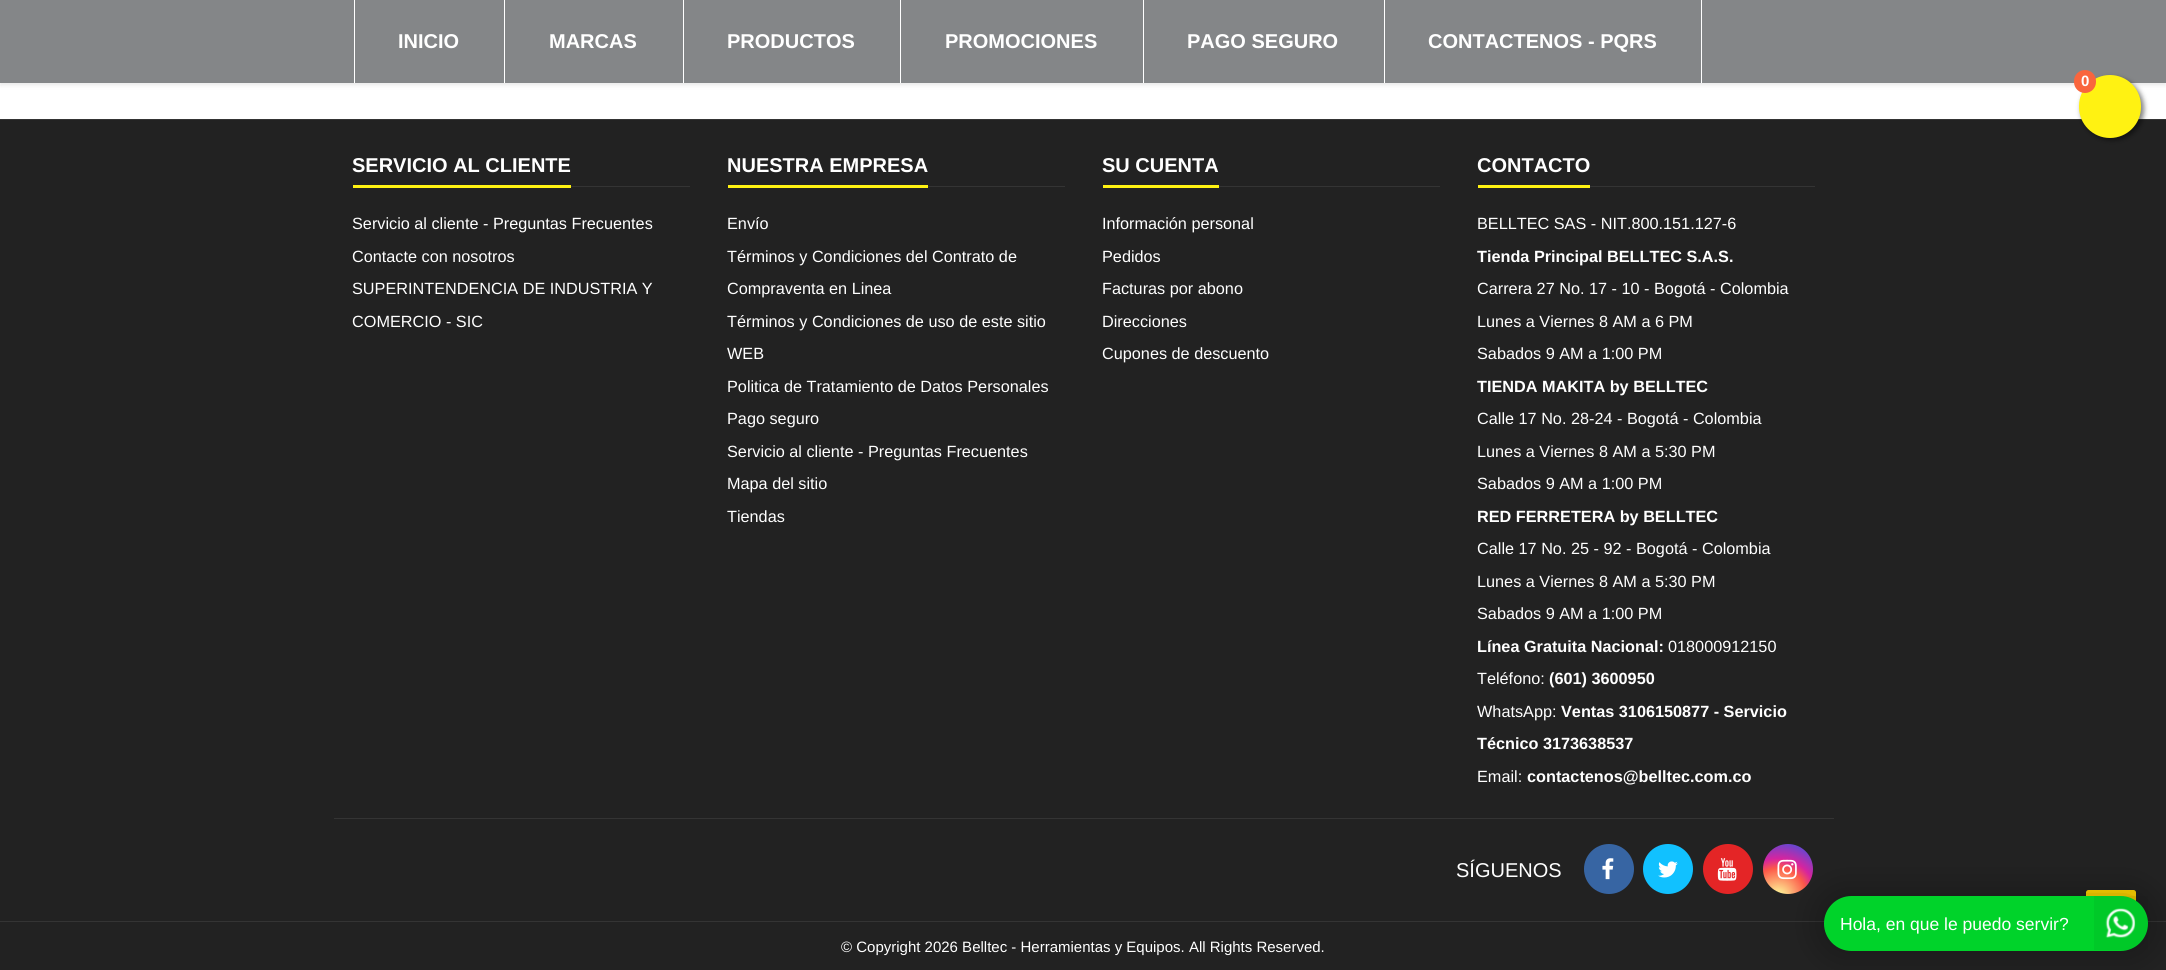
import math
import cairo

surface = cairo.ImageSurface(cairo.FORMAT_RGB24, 2166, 970)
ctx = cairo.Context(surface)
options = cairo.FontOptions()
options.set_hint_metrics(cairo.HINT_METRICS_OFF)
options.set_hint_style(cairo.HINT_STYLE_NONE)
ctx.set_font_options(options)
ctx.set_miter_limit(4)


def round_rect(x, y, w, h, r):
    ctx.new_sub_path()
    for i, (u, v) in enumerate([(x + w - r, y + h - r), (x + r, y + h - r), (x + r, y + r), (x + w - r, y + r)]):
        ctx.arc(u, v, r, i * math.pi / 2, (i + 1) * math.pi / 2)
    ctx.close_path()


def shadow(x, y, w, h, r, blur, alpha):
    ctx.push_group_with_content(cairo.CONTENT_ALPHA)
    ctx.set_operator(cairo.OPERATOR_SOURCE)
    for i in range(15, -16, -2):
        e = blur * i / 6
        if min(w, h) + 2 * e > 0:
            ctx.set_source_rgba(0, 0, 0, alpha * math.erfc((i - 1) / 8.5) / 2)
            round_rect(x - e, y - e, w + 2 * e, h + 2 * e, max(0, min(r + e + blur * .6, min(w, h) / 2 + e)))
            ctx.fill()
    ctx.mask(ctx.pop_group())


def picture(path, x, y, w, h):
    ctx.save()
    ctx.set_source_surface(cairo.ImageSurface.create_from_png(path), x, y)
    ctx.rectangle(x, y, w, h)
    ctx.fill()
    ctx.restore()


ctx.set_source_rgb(1, 1, 1)
ctx.paint()
ctx.set_source_rgb(0, 0, 0)
shadow(0, 3, 2166, 82, 0, 2.5, 0.1)
ctx.set_source_rgb(0.518, 0.525, 0.533)
ctx.rectangle(0, 0, 2166, 83)
ctx.fill()
ctx.set_source_rgb(1, 1, 1)
ctx.rectangle(354, 0, 1, 83)
ctx.fill()
ctx.select_font_face("Liberation Sans", cairo.FONT_SLANT_NORMAL, cairo.FONT_WEIGHT_BOLD)
ctx.set_font_size(20)
ctx.move_to(398, 48)
ctx.show_text("INICIO")
ctx.rectangle(504, 0, 1, 83)
ctx.fill()
ctx.move_to(549, 48)
ctx.show_text("MARCAS")
ctx.rectangle(683, 0, 1, 83)
ctx.fill()
ctx.move_to(727, 48)
ctx.show_text("PRODUCTOS")
ctx.rectangle(900, 0, 1, 83)
ctx.fill()
ctx.move_to(945, 48)
ctx.show_text("PROMOCIONES")
ctx.rectangle(1143, 0, 1, 83)
ctx.fill()
ctx.move_to(1187, 48)
ctx.show_text("PAGO SEGURO")
ctx.rectangle(1701, 0, 1, 83)
ctx.fill()
ctx.rectangle(1384, 0, 1, 83)
ctx.fill()
ctx.move_to(1428, 48)
ctx.show_text("CONTACTENOS - PQRS")
ctx.set_source_rgb(0.133, 0.133, 0.133)
ctx.rectangle(0, 120, 2166, 850)
ctx.fill()
ctx.set_source_rgb(0.204, 0.204, 0.204)
ctx.rectangle(0, 119, 2166, 1)
ctx.fill()
ctx.set_source_rgb(0, 0, 0)
shadow(2081, 78, 63, 62, 31, 2.5, 0.5)
ctx.set_source_rgb(1, 0.949, 0.071)
round_rect(2079, 75, 62, 63, 31)
ctx.fill()
ctx.set_source_rgb(0.973, 0.396, 0.239)
round_rect(2074, 70, 22, 23, 11)
ctx.fill()
ctx.set_font_size(15)
ctx.set_source_rgb(1, 1, 1)
ctx.move_to(2081, 86)
ctx.show_text("0")
ctx.set_source_rgb(0.204, 0.204, 0.204)
ctx.rectangle(571, 186, 119, 1)
ctx.fill()
ctx.set_source_rgb(1, 0.949, 0.071)
ctx.rectangle(353, 185, 218, 3)
ctx.fill()
ctx.set_font_size(20)
ctx.set_source_rgb(1, 1, 1)
ctx.move_to(352, 172)
ctx.show_text("SERVICIO AL CLIENTE")
ctx.select_font_face("Liberation Sans")
ctx.set_font_size(16.25)
ctx.move_to(352, 229)
ctx.show_text("Servicio al cliente - Preguntas Frecuentes")
ctx.move_to(352, 262)
ctx.show_text("Contacte con nosotros")
ctx.move_to(352, 294)
ctx.show_text("SUPERINTENDENCIA DE INDUSTRIA Y")
ctx.move_to(352, 327)
ctx.show_text("COMERCIO - SIC")
ctx.set_source_rgb(0.204, 0.204, 0.204)
ctx.rectangle(928, 186, 137, 1)
ctx.fill()
ctx.set_source_rgb(1, 0.949, 0.071)
ctx.rectangle(728, 185, 200, 3)
ctx.fill()
ctx.select_font_face("Liberation Sans", cairo.FONT_SLANT_NORMAL, cairo.FONT_WEIGHT_BOLD)
ctx.set_font_size(20)
ctx.set_source_rgb(1, 1, 1)
ctx.move_to(727, 172)
ctx.show_text("NUESTRA EMPRESA")
ctx.select_font_face("Liberation Sans")
ctx.set_font_size(16.25)
ctx.move_to(727, 229)
ctx.show_text("Envío")
ctx.move_to(727, 262)
ctx.show_text("Términos y Condiciones del Contrato de")
ctx.move_to(727, 294)
ctx.show_text("Compraventa en Linea")
ctx.move_to(727, 327)
ctx.show_text("Términos y Condiciones de uso de este sitio")
ctx.move_to(727, 359)
ctx.show_text("WEB")
ctx.move_to(727, 392)
ctx.show_text("Politica de Tratamiento de Datos Personales")
ctx.move_to(727, 424)
ctx.show_text("Pago seguro")
ctx.move_to(727, 457)
ctx.show_text("Servicio al cliente - Preguntas Frecuentes")
ctx.move_to(727, 489)
ctx.show_text("Mapa del sitio")
ctx.move_to(727, 522)
ctx.show_text("Tiendas")
ctx.set_source_rgb(0.204, 0.204, 0.204)
ctx.rectangle(1219, 186, 221, 1)
ctx.fill()
ctx.set_source_rgb(1, 0.949, 0.071)
ctx.rectangle(1103, 185, 116, 3)
ctx.fill()
ctx.select_font_face("Liberation Sans", cairo.FONT_SLANT_NORMAL, cairo.FONT_WEIGHT_BOLD)
ctx.set_font_size(20)
ctx.set_source_rgb(1, 1, 1)
ctx.move_to(1102, 172)
ctx.show_text("SU CUENTA")
ctx.select_font_face("Liberation Sans")
ctx.set_font_size(16.25)
ctx.move_to(1102, 229)
ctx.show_text("Información personal")
ctx.move_to(1102, 262)
ctx.show_text("Pedidos")
ctx.move_to(1102, 294)
ctx.show_text("Facturas por abono")
ctx.move_to(1102, 327)
ctx.show_text("Direcciones")
ctx.move_to(1102, 359)
ctx.show_text("Cupones de descuento")
ctx.set_source_rgb(0.204, 0.204, 0.204)
ctx.rectangle(1590, 186, 225, 1)
ctx.fill()
ctx.set_source_rgb(1, 0.949, 0.071)
ctx.rectangle(1478, 185, 112, 3)
ctx.fill()
ctx.select_font_face("Liberation Sans", cairo.FONT_SLANT_NORMAL, cairo.FONT_WEIGHT_BOLD)
ctx.set_font_size(20)
ctx.set_source_rgb(1, 1, 1)
ctx.move_to(1477, 172)
ctx.show_text("CONTACTO")
ctx.select_font_face("Liberation Sans")
ctx.set_font_size(16.25)
ctx.move_to(1477, 229)
ctx.show_text("BELLTEC SAS - NIT.800.151.127-6")
ctx.select_font_face("Liberation Sans", cairo.FONT_SLANT_NORMAL, cairo.FONT_WEIGHT_BOLD)
ctx.move_to(1477, 262)
ctx.show_text("Tienda Principal BELLTEC S.A.S.")
ctx.select_font_face("Liberation Sans")
ctx.move_to(1477, 294)
ctx.show_text("Carrera 27 No. 17 - 10 - Bogotá - Colombia")
ctx.move_to(1477, 327)
ctx.show_text("Lunes a Viernes 8 AM a 6 PM")
ctx.move_to(1477, 359)
ctx.show_text("Sabados 9 AM a 1:00 PM")
ctx.select_font_face("Liberation Sans", cairo.FONT_SLANT_NORMAL, cairo.FONT_WEIGHT_BOLD)
ctx.move_to(1477, 392)
ctx.show_text("TIENDA MAKITA by BELLTEC")
ctx.select_font_face("Liberation Sans")
ctx.move_to(1477, 424)
ctx.show_text("Calle 17 No. 28-24 - Bogotá - Colombia")
ctx.move_to(1477, 457)
ctx.show_text("Lunes a Viernes 8 AM a 5:30 PM")
ctx.move_to(1477, 489)
ctx.show_text("Sabados 9 AM a 1:00 PM")
ctx.select_font_face("Liberation Sans", cairo.FONT_SLANT_NORMAL, cairo.FONT_WEIGHT_BOLD)
ctx.move_to(1477, 522)
ctx.show_text("RED FERRETERA by BELLTEC")
ctx.select_font_face("Liberation Sans")
ctx.move_to(1477, 554)
ctx.show_text("Calle 17 No. 25 - 92 - Bogotá - Colombia")
ctx.move_to(1477, 587)
ctx.show_text("Lunes a Viernes 8 AM a 5:30 PM")
ctx.move_to(1477, 619)
ctx.show_text("Sabados 9 AM a 1:00 PM")
ctx.select_font_face("Liberation Sans", cairo.FONT_SLANT_NORMAL, cairo.FONT_WEIGHT_BOLD)
ctx.move_to(1477, 652)
ctx.show_text("Línea Gratuita Nacional:")
ctx.select_font_face("Liberation Sans")
ctx.move_to(1668, 652)
ctx.show_text("018000912150")
ctx.move_to(1477, 684)
ctx.show_text("Teléfono:")
ctx.select_font_face("Liberation Sans", cairo.FONT_SLANT_NORMAL, cairo.FONT_WEIGHT_BOLD)
ctx.move_to(1549, 684)
ctx.show_text("(601) 3600950")
ctx.select_font_face("Liberation Sans")
ctx.move_to(1477, 717)
ctx.show_text("WhatsApp:")
ctx.select_font_face("Liberation Sans", cairo.FONT_SLANT_NORMAL, cairo.FONT_WEIGHT_BOLD)
ctx.move_to(1561, 717)
ctx.show_text("Ventas 3106150877 - Servicio")
ctx.move_to(1477, 749)
ctx.show_text("Técnico 3173638537")
ctx.select_font_face("Liberation Sans")
ctx.move_to(1477, 782)
ctx.show_text("Email:")
ctx.select_font_face("Liberation Sans", cairo.FONT_SLANT_NORMAL, cairo.FONT_WEIGHT_BOLD)
ctx.move_to(1527, 782)
ctx.show_text("contactenos@belltec.com.co")
ctx.set_source_rgb(0.204, 0.204, 0.204)
ctx.rectangle(0, 921, 2166, 1)
ctx.fill()
ctx.set_source_rgb(1, 0.827, 0)
round_rect(2086, 890, 50, 50, 2.5)
ctx.fill()
ctx.set_source_rgb(0.204, 0.204, 0.204)
ctx.rectangle(334, 818, 1500, 1)
ctx.fill()
ctx.select_font_face("Liberation Sans")
ctx.set_font_size(20)
ctx.set_source_rgb(1, 1, 1)
ctx.move_to(1456, 877)
ctx.show_text("SÍGUENOS")
ctx.set_source_rgb(0.216, 0.396, 0.639)
ctx.new_path()
ctx.arc(1609, 869, 25, 0, 2 * math.pi)
ctx.fill()
picture("img1.png", 1602, 858, 12, 22)
ctx.set_source_rgb(0.067, 0.757, 1)
ctx.arc(1668, 869, 25, 0, 2 * math.pi)
ctx.fill()
picture("img2.png", 1658, 861, 20, 17)
ctx.set_source_rgb(0.894, 0.145, 0.149)
ctx.arc(1728, 869, 25, 0, 2 * math.pi)
ctx.fill()
picture("img3.png", 1717, 858, 20, 23)
gradient = cairo.RadialGradient(1778, 897, 0, 1778, 897, 64)
gradient.add_color_stop_rgba(0, 0.992, 0.957, 0.592, 1)
gradient.add_color_stop_rgba(0.05, 0.992, 0.957, 0.592, 1)
gradient.add_color_stop_rgba(0.45, 0.992, 0.349, 0.286, 1)
gradient.add_color_stop_rgba(0.6, 0.839, 0.141, 0.624, 1)
gradient.add_color_stop_rgba(1, 0.157, 0.353, 0.922, 1)
ctx.set_source(gradient)
ctx.arc(1788, 869, 25, 0, 2 * math.pi)
ctx.fill()
picture("img4.png", 1777, 859, 20, 21)
ctx.set_font_size(15)
ctx.set_source_rgb(1, 1, 1)
ctx.move_to(841, 952)
ctx.show_text("© Copyright 2026 Belltec - Herramientas y Equipos. All Rights Reserved.")
ctx.set_source_rgb(0, 0, 0)
shadow(1824, 896, 324, 55, 27.5, 19, 0.3)
ctx.set_source_rgb(0, 0.827, 0.165)
round_rect(1824, 896, 324, 55, 27.5)
ctx.fill()
ctx.set_font_size(17.5)
ctx.set_source_rgb(1, 1, 1)
ctx.move_to(1840, 930)
ctx.show_text("Hola, en que le puedo servir?")
ctx.set_source_rgba(0, 0, 0, 0.05)
ctx.rectangle(2094, 896, 54, 54)
ctx.fill()
picture("img5.png", 2105, 908, 31, 30)
surface.write_to_png("page.png")
